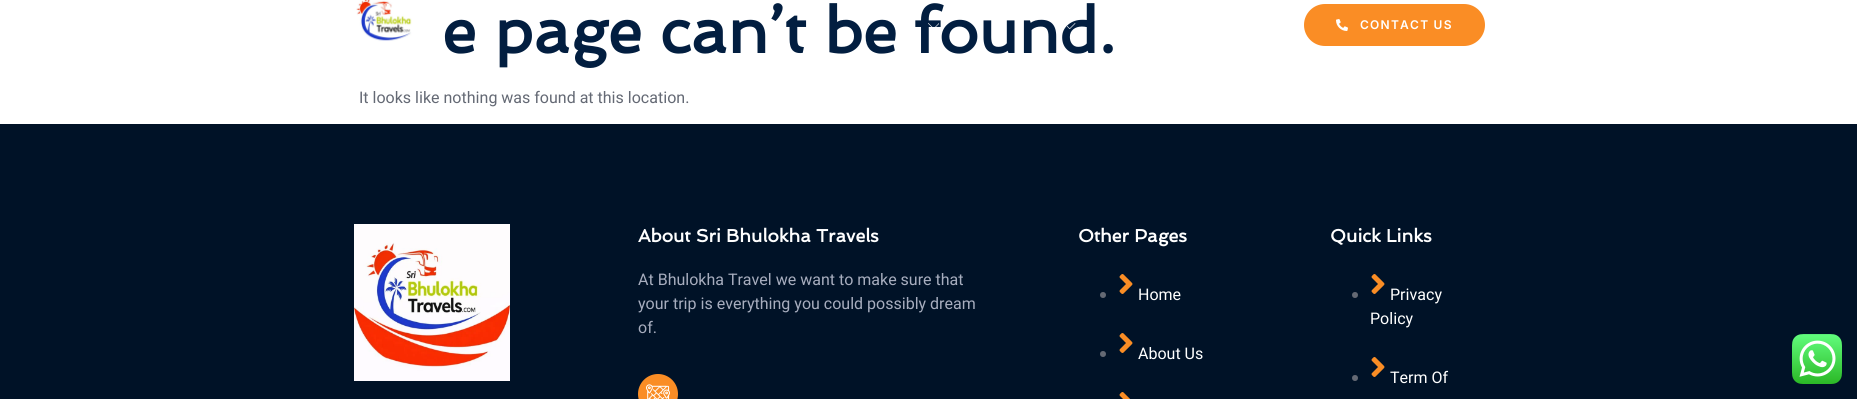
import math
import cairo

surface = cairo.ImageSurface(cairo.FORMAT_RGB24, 1857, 399)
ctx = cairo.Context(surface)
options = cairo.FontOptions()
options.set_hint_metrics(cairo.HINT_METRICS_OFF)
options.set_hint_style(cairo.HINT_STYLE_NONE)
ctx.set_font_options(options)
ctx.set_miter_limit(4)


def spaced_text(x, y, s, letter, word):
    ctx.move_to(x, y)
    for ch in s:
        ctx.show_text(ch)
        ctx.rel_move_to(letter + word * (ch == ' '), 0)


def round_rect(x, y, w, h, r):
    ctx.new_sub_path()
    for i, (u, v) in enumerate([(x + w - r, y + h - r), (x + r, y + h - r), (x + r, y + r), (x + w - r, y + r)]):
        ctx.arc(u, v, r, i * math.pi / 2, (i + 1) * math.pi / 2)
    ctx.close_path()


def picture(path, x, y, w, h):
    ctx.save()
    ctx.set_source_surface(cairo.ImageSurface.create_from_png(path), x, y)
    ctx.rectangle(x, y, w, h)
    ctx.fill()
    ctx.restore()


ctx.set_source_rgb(1, 1, 1)
ctx.paint()
ctx.select_font_face("Spinnaker", cairo.FONT_SLANT_NORMAL, cairo.FONT_WEIGHT_BOLD)
ctx.set_font_size(63)
ctx.set_source_rgb(0.008, 0.118, 0.251)
ctx.move_to(442, 53)
ctx.show_text("e page can’t be found.")
ctx.select_font_face("Heebo")
ctx.set_font_size(16)
ctx.set_source_rgb(0.392, 0.412, 0.455)
ctx.move_to(359, 103)
ctx.show_text("It looks like nothing was found at this location.")
picture("img1.png", 356, 0, 61, 53)
picture("img2.png", 928, 23, 11, 4)
picture("img3.png", 1067, 23, 9, 6)
ctx.set_source_rgb(0.98, 0.553, 0.145)
round_rect(1304, 4, 181, 42, 21)
ctx.fill()
picture("img4.png", 1336, 19, 12, 12)
ctx.select_font_face("Inter SemiBold")
ctx.set_font_size(12)
ctx.set_source_rgb(1, 1, 1)
spaced_text(1360, 29, "CONTACT US", 1.25, 0)
ctx.set_source_rgb(0, 0.071, 0.153)
ctx.rectangle(0, 124, 1857, 275)
ctx.fill()
picture("img5.png", 354, 224, 156, 157)
ctx.select_font_face("Spinnaker", cairo.FONT_SLANT_NORMAL, cairo.FONT_WEIGHT_BOLD)
ctx.set_font_size(18)
ctx.set_source_rgb(1, 1, 1)
ctx.move_to(638, 242)
ctx.show_text("About Sri Bhulokha Travels")
ctx.select_font_face("Heebo")
ctx.set_font_size(16)
ctx.set_source_rgb(0.655, 0.678, 0.745)
ctx.move_to(638, 285)
ctx.show_text("At Bhulokha Travel we want to make sure that")
ctx.move_to(638, 309)
ctx.show_text("your trip is everything you could possibly dream")
ctx.move_to(638, 333)
ctx.show_text("of.")
ctx.set_source_rgb(0.98, 0.553, 0.145)
ctx.new_path()
ctx.arc(658, 394, 20, 0, 2 * math.pi)
ctx.fill()
picture("img6.png", 646, 384, 24, 15)
ctx.select_font_face("Spinnaker", cairo.FONT_SLANT_NORMAL, cairo.FONT_WEIGHT_BOLD)
ctx.set_font_size(18)
ctx.set_source_rgb(1, 1, 1)
ctx.move_to(1078, 242)
ctx.show_text("Other Pages")
ctx.set_source_rgb(0.392, 0.412, 0.455)
ctx.new_path()
ctx.arc(1103, 295, 3, 0, 2 * math.pi)
ctx.fill()
picture("img7.png", 1119, 274, 14, 20)
ctx.select_font_face("Heebo")
ctx.set_font_size(16)
ctx.set_source_rgb(1, 1, 1)
ctx.move_to(1138, 300)
ctx.show_text("Home")
ctx.set_source_rgb(0.392, 0.412, 0.455)
ctx.new_path()
ctx.arc(1103, 354, 3, 0, 2 * math.pi)
ctx.fill()
picture("img7.png", 1119, 333, 14, 20)
ctx.set_source_rgb(1, 1, 1)
ctx.move_to(1138, 359)
ctx.show_text("About Us")
picture("img8.png", 1119, 392, 11, 7)
ctx.select_font_face("Spinnaker", cairo.FONT_SLANT_NORMAL, cairo.FONT_WEIGHT_BOLD)
ctx.set_font_size(18)
ctx.move_to(1330, 242)
ctx.show_text("Quick Links")
picture("img7.png", 1371, 274, 14, 20)
ctx.set_source_rgb(0.392, 0.412, 0.455)
ctx.arc(1355, 295, 3, 0, 2 * math.pi)
ctx.fill()
ctx.select_font_face("Heebo")
ctx.set_font_size(16)
ctx.set_source_rgb(1, 1, 1)
ctx.move_to(1390, 300)
ctx.show_text("Privacy")
ctx.move_to(1370, 324)
ctx.show_text("Policy")
ctx.set_source_rgb(0.392, 0.412, 0.455)
ctx.new_path()
ctx.arc(1355, 378, 3, 0, 2 * math.pi)
ctx.fill()
picture("img7.png", 1371, 357, 14, 20)
ctx.set_source_rgb(1, 1, 1)
ctx.move_to(1390, 383)
ctx.show_text("Term Of")
picture("img9.png", 1792, 334, 50, 50)
surface.write_to_png("page.png")
